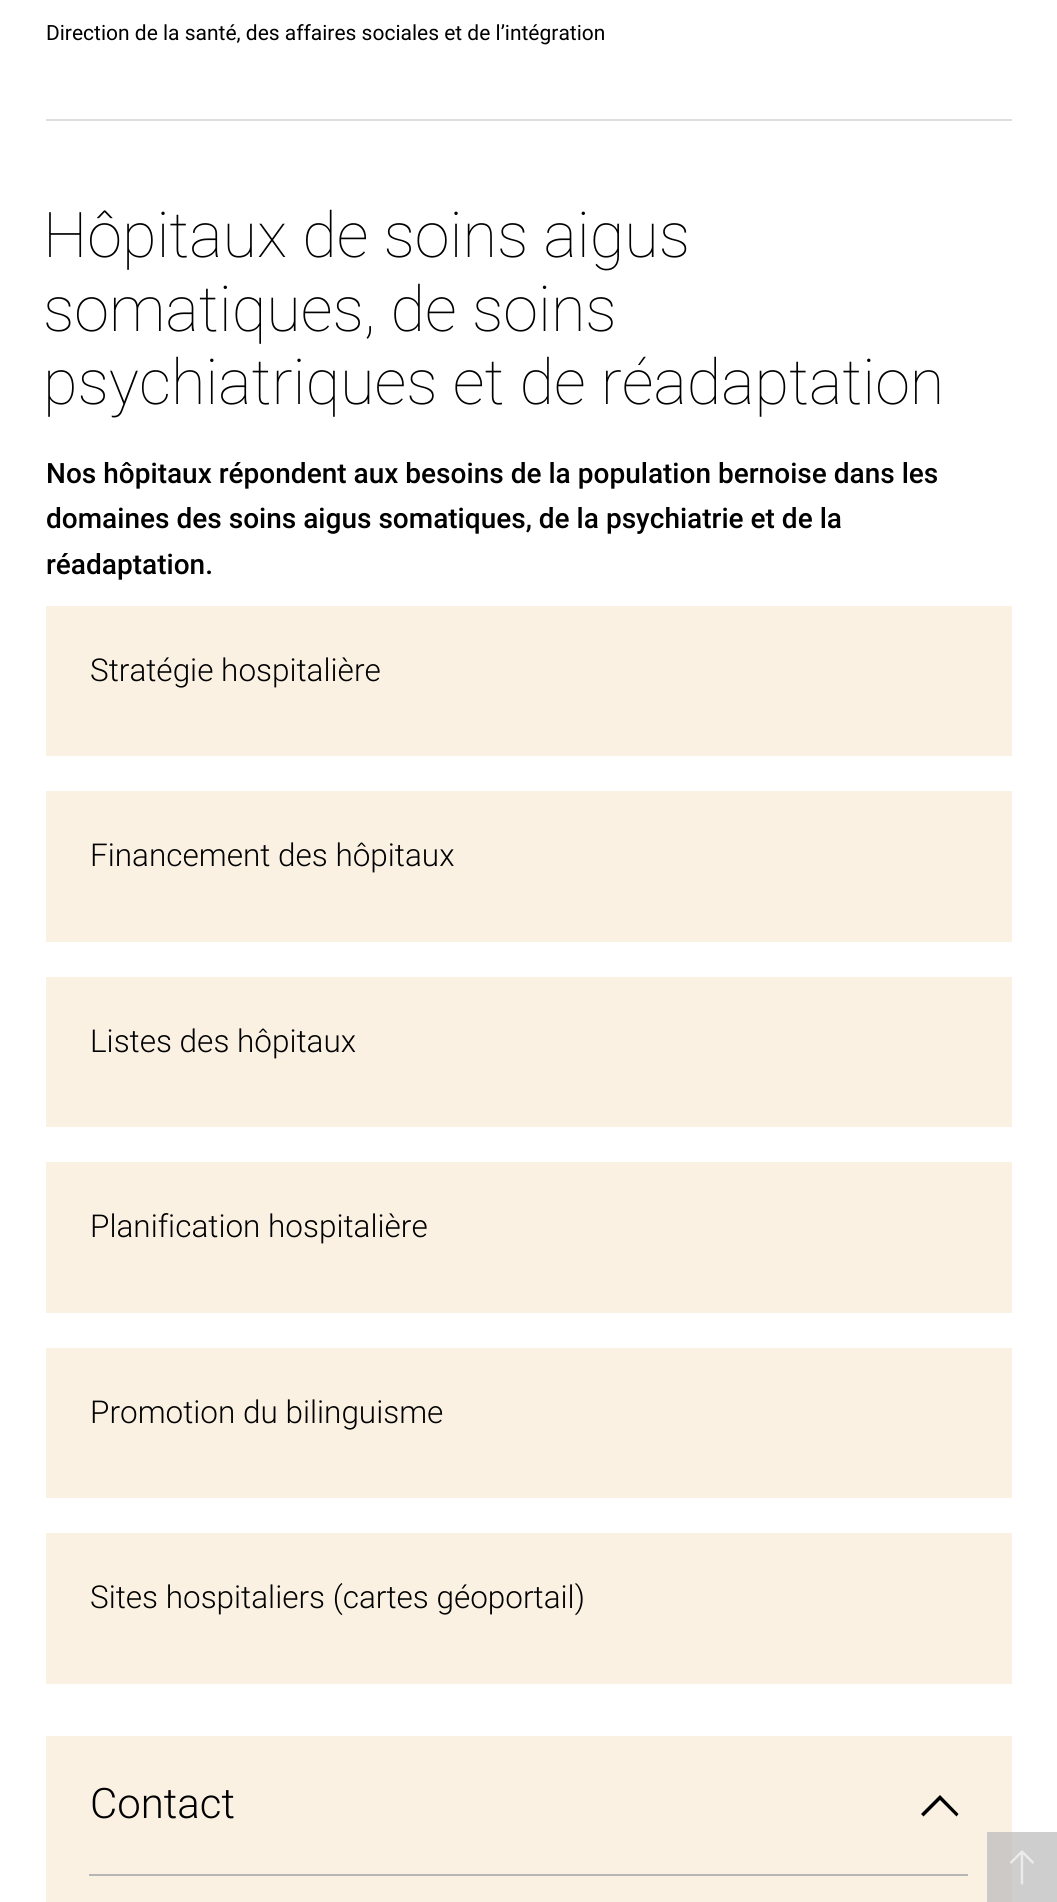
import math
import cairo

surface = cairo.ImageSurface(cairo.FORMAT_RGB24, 1057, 1902)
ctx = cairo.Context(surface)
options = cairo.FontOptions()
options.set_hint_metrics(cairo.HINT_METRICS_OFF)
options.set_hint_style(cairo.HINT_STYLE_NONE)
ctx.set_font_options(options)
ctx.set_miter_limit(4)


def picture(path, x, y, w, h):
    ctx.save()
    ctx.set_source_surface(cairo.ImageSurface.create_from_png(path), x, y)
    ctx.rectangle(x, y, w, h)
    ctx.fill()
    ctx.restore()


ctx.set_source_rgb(1, 1, 1)
ctx.paint()
ctx.set_source_rgb(0.961, 0.961, 0.961)
ctx.rectangle(1012, 1832, 45, 70)
ctx.fill()
ctx.select_font_face("Roboto")
ctx.set_font_size(21)
ctx.set_source_rgb(0, 0, 0)
ctx.move_to(46, 40)
ctx.show_text("Direction de la santé, des affaires sociales et de l’intégration")
ctx.set_source_rgb(0.871, 0.871, 0.871)
ctx.rectangle(46, 119, 966, 2)
ctx.fill()
ctx.select_font_face("Roboto Thin")
ctx.set_font_size(63)
ctx.set_source_rgb(0, 0, 0)
ctx.move_to(43, 257)
ctx.show_text("Hôpitaux de soins aigus")
ctx.move_to(43, 331)
ctx.show_text("somatiques, de soins")
ctx.move_to(43, 404)
ctx.show_text("psychiatriques et de réadaptation")
ctx.select_font_face("Roboto Medium")
ctx.set_font_size(28)
ctx.move_to(46, 483)
ctx.show_text("Nos hôpitaux répondent aux besoins de la population bernoise dans les")
ctx.move_to(46, 528)
ctx.show_text("domaines des soins aigus somatiques, de la psychiatrie et de la")
ctx.move_to(46, 574)
ctx.show_text("réadaptation.")
ctx.set_source_rgb(0.98, 0.945, 0.89)
ctx.rectangle(46, 606, 966, 150)
ctx.fill()
ctx.select_font_face("Roboto Light")
ctx.set_font_size(31.5)
ctx.set_source_rgb(0, 0, 0)
ctx.move_to(90, 681)
ctx.show_text("Stratégie hospitalière")
ctx.set_source_rgb(0.98, 0.945, 0.89)
ctx.rectangle(46, 791, 966, 151)
ctx.fill()
ctx.set_source_rgb(0, 0, 0)
ctx.move_to(90, 866)
ctx.show_text("Financement des hôpitaux")
ctx.set_source_rgb(0.98, 0.945, 0.89)
ctx.rectangle(46, 977, 966, 150)
ctx.fill()
ctx.set_source_rgb(0, 0, 0)
ctx.move_to(90, 1052)
ctx.show_text("Listes des hôpitaux")
ctx.set_source_rgb(0.98, 0.945, 0.89)
ctx.rectangle(46, 1162, 966, 151)
ctx.fill()
ctx.set_source_rgb(0, 0, 0)
ctx.move_to(90, 1237)
ctx.show_text("Planification hospitalière")
ctx.set_source_rgb(0.98, 0.945, 0.89)
ctx.rectangle(46, 1348, 966, 150)
ctx.fill()
ctx.set_source_rgb(0, 0, 0)
ctx.move_to(90, 1423)
ctx.show_text("Promotion du bilinguisme")
ctx.set_source_rgb(0.98, 0.945, 0.89)
ctx.rectangle(46, 1533, 966, 151)
ctx.fill()
ctx.set_source_rgb(0, 0, 0)
ctx.move_to(90, 1608)
ctx.show_text("Sites hospitaliers (cartes géoportail)")
ctx.set_source_rgb(0.98, 0.945, 0.89)
ctx.rectangle(46, 1736, 966, 138)
ctx.fill()
ctx.set_source_rgb(0.953, 0.941, 0.918)
ctx.rectangle(987, 1832, 25, 70)
ctx.fill()
ctx.set_font_size(42)
ctx.set_source_rgb(0, 0, 0)
ctx.move_to(90, 1818)
ctx.show_text("Contact")
ctx.new_path()
ctx.move_to(923.5, 1816.5)
ctx.line_to(940, 1800)
ctx.line_to(956.5, 1816.5)
ctx.line_to(958.5, 1814)
ctx.line_to(940, 1795)
ctx.line_to(921, 1814)
ctx.close_path()
ctx.fill()
ctx.set_source_rgb(0.98, 0.945, 0.89)
ctx.rectangle(46, 1874, 941, 28)
ctx.fill()
ctx.set_source_rgb(0.714, 0.714, 0.714)
ctx.rectangle(89, 1874, 879, 2)
ctx.fill()
picture("img1.png", 987, 1832, 70, 70)
surface.write_to_png("page.png")
